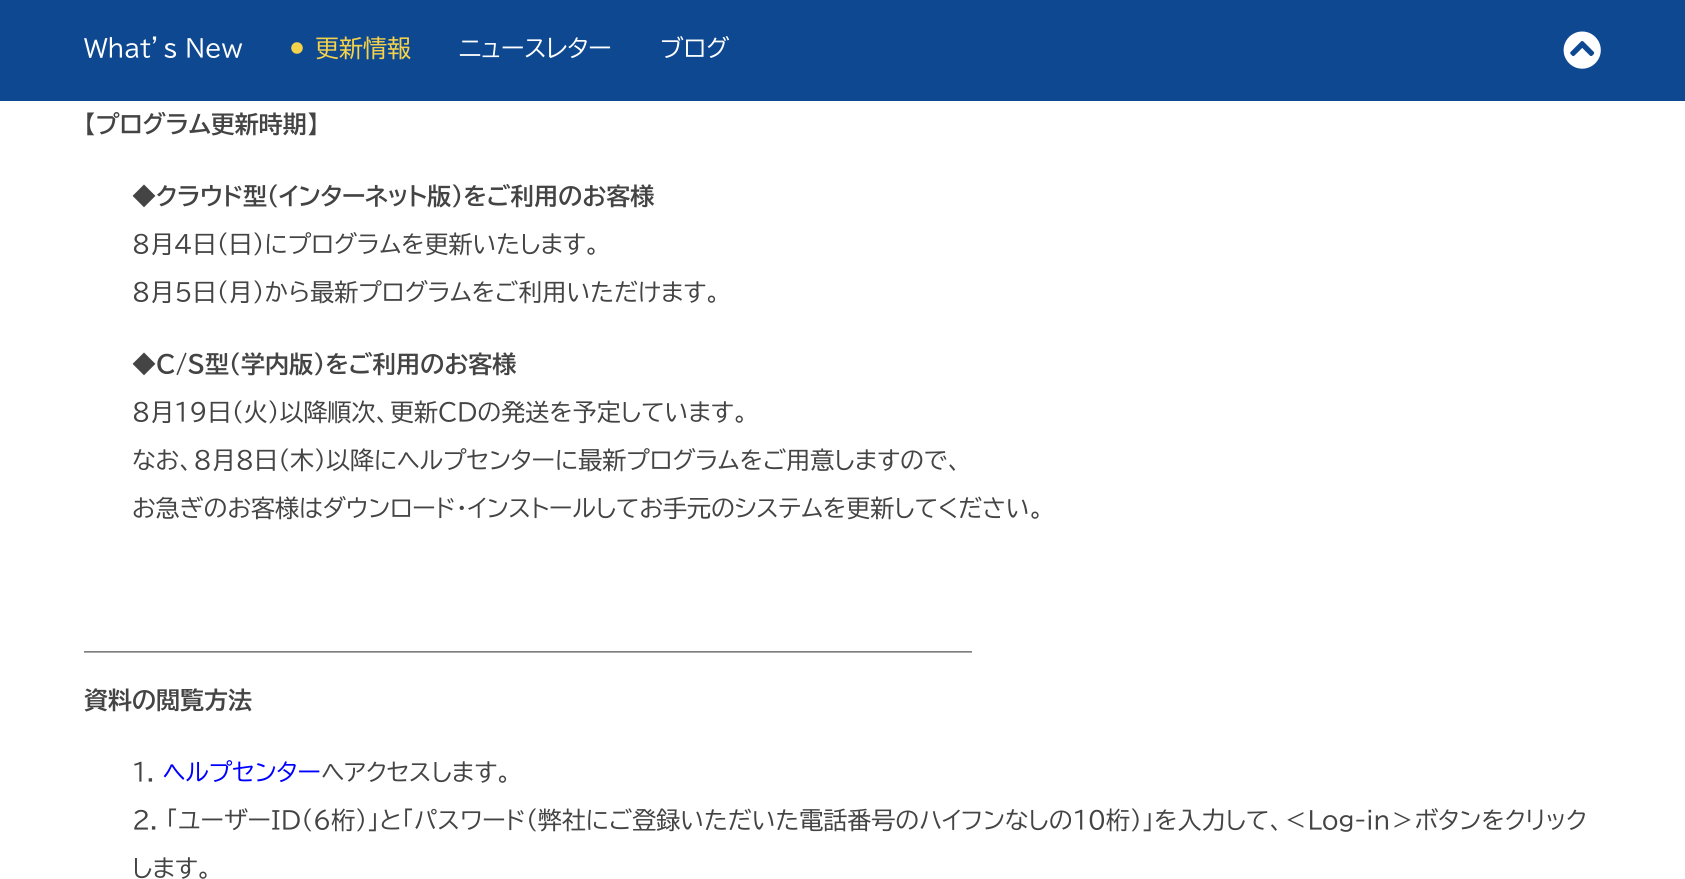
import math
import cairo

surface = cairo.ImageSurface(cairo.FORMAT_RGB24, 1685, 879)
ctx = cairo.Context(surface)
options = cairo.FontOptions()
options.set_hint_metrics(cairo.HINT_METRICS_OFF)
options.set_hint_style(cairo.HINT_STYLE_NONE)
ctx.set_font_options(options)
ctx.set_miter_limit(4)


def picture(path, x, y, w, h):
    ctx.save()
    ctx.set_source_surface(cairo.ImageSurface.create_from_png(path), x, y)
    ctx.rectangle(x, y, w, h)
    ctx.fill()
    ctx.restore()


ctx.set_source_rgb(1, 1, 1)
ctx.paint()
ctx.set_source_rgb(0.051, 0.282, 0.569)
ctx.rectangle(0, 0, 1685, 101)
ctx.fill()
ctx.select_font_face("BIZ UDPGothic")
ctx.set_font_size(24)
ctx.set_source_rgb(1, 1, 1)
ctx.move_to(84, 57)
ctx.show_text("What’s New")
picture("img1.png", 291, 42, 12, 12)
ctx.set_source_rgb(0.957, 0.824, 0.294)
ctx.move_to(315, 57)
ctx.show_text("更新情報")
ctx.set_source_rgb(1, 1, 1)
ctx.move_to(459, 57)
ctx.show_text("ニュースレター")
ctx.move_to(660, 57)
ctx.show_text("ブログ")
picture("img2.png", 1563, 31, 38, 38)
ctx.select_font_face("BIZ UDPGothic", cairo.FONT_SLANT_NORMAL, cairo.FONT_WEIGHT_BOLD)
ctx.set_source_rgb(0.267, 0.267, 0.267)
ctx.move_to(84, 133)
ctx.show_text("【プログラム更新時期】")
ctx.move_to(132, 205)
ctx.show_text("◆クラウド型（インターネット版）をご利用のお客様")
ctx.select_font_face("BIZ UDPGothic")
ctx.move_to(132, 253)
ctx.show_text("8月4日（日）にプログラムを更新いたします。")
ctx.move_to(132, 301)
ctx.show_text("8月5日（月）から最新プログラムをご利用いただけます。")
ctx.select_font_face("BIZ UDPGothic", cairo.FONT_SLANT_NORMAL, cairo.FONT_WEIGHT_BOLD)
ctx.move_to(132, 373)
ctx.show_text("◆C/S型（学内版）をご利用のお客様")
ctx.select_font_face("BIZ UDPGothic")
ctx.move_to(132, 421)
ctx.show_text("8月19日（火）以降順次、更新CDの発送を予定しています。")
ctx.move_to(132, 469)
ctx.show_text("なお、8月8日（木）以降にヘルプセンターに最新プログラムをご用意しますので、")
ctx.move_to(132, 517)
ctx.show_text("お急ぎのお客様はダウンロード・インストールしてお手元のシステムを更新してください。")
ctx.move_to(84, 661)
ctx.show_text("—————————————————————————————————————")
ctx.select_font_face("BIZ UDPGothic", cairo.FONT_SLANT_NORMAL, cairo.FONT_WEIGHT_BOLD)
ctx.move_to(84, 709)
ctx.show_text("資料の閲覧方法")
ctx.select_font_face("BIZ UDPGothic")
ctx.move_to(132, 781)
ctx.show_text("1.")
ctx.set_source_rgb(0, 0, 1)
ctx.move_to(163, 781)
ctx.show_text("ヘルプセンター")
ctx.set_source_rgb(0.267, 0.267, 0.267)
ctx.move_to(321, 781)
ctx.show_text("へアクセスします。")
ctx.move_to(132, 829)
ctx.show_text("2. 「ユーザーID（6桁）」と「パスワード（弊社にご登録いただいた電話番号のハイフンなしの10桁）」を入力して、＜Log-in＞ボタンをクリック")
ctx.move_to(132, 877)
ctx.show_text("します。")
surface.write_to_png("page.png")
